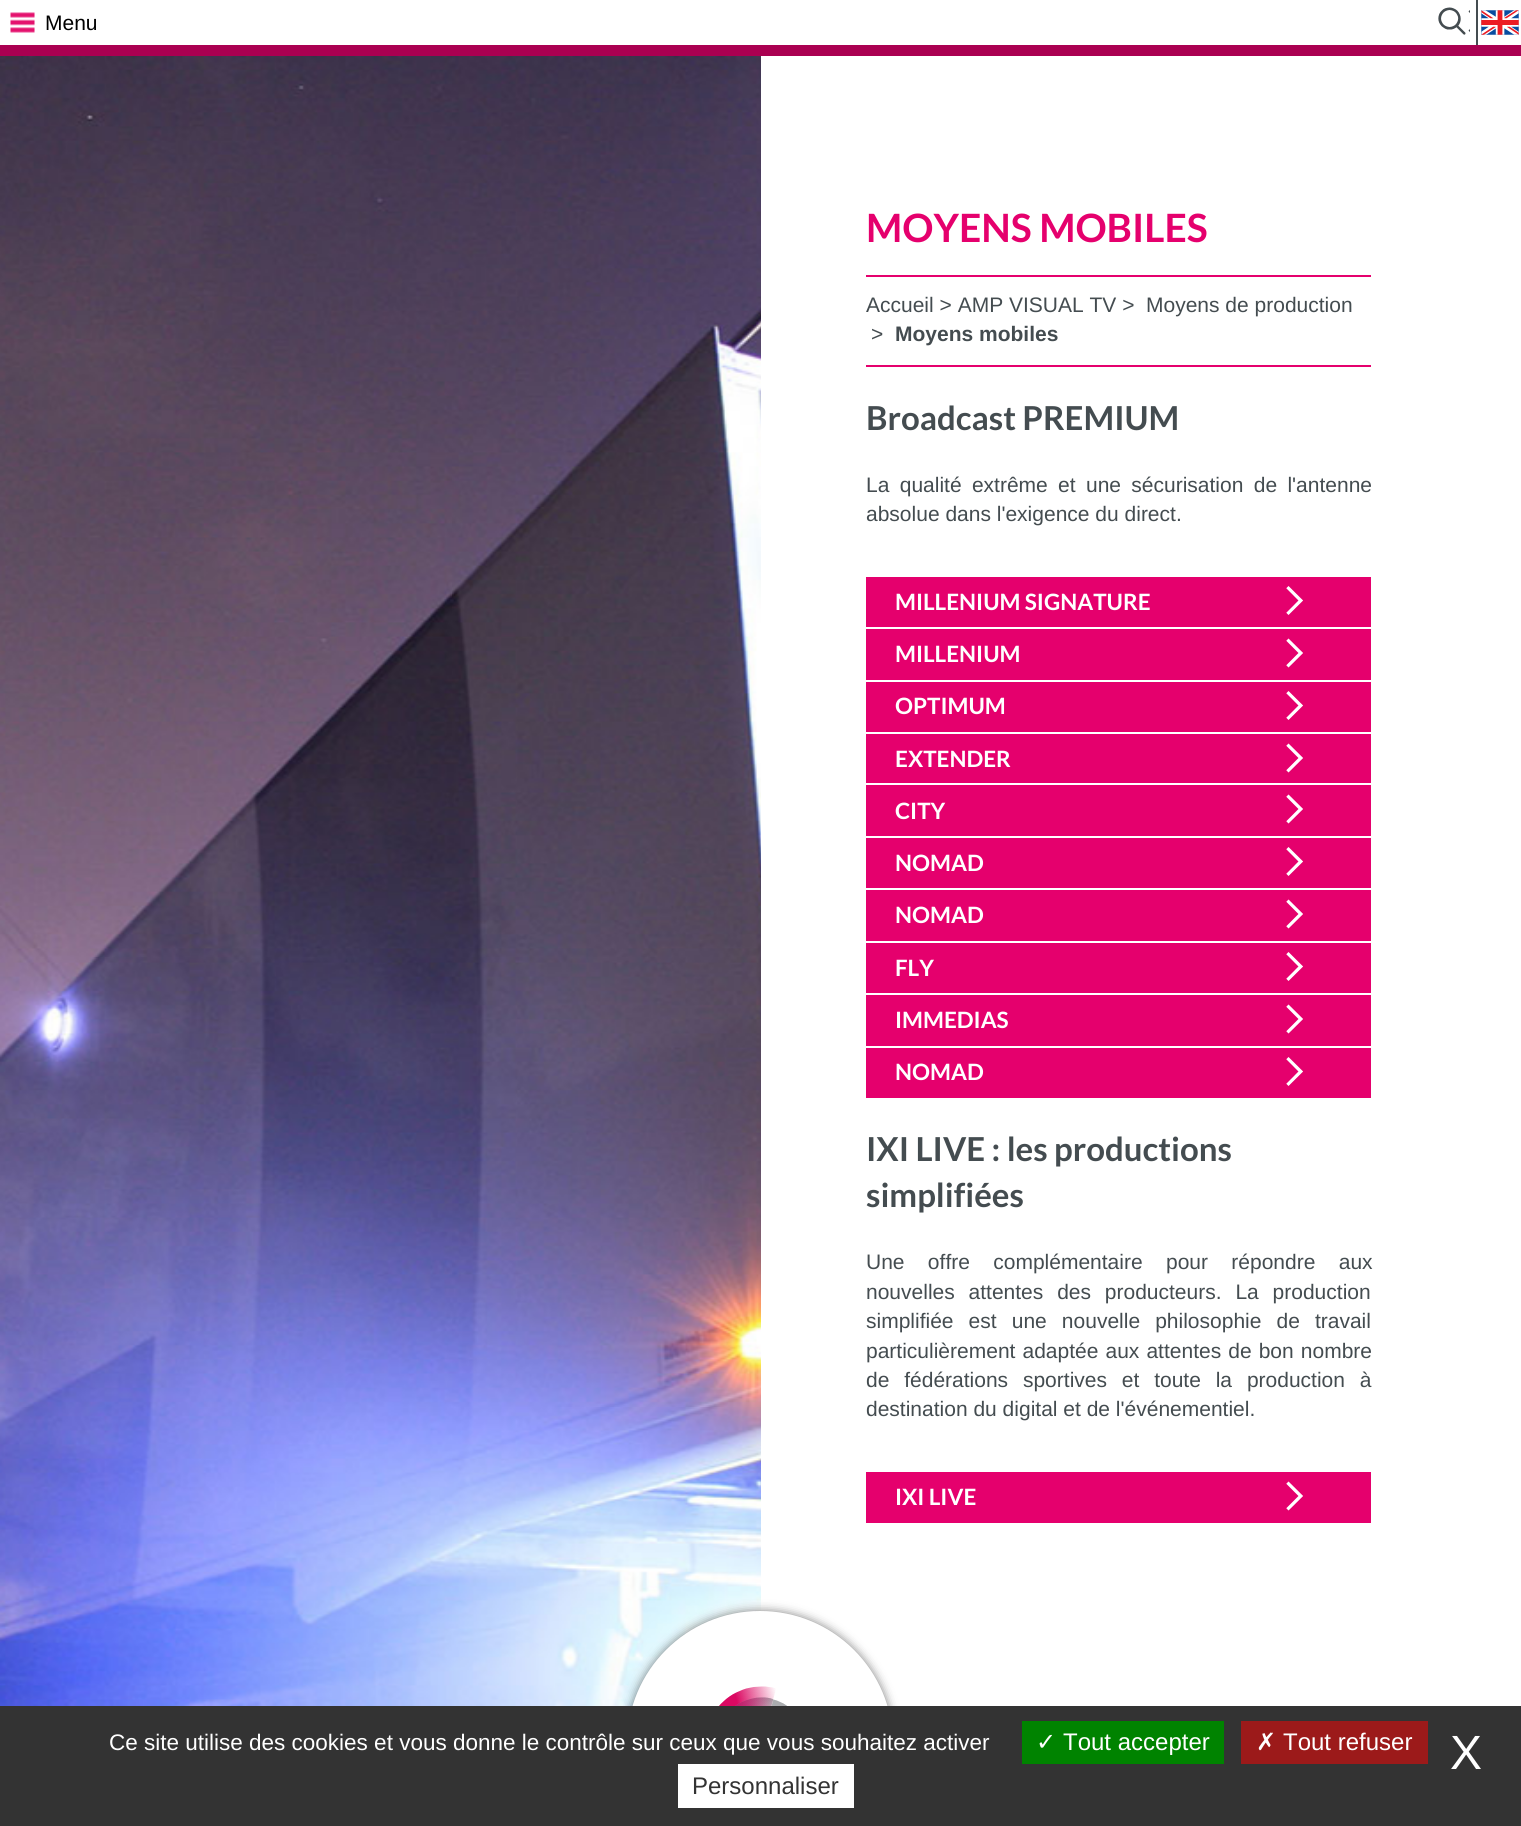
import math
import cairo

surface = cairo.ImageSurface(cairo.FORMAT_RGB24, 1521, 1826)
ctx = cairo.Context(surface)
options = cairo.FontOptions()
options.set_hint_metrics(cairo.HINT_METRICS_OFF)
options.set_hint_style(cairo.HINT_STYLE_NONE)
ctx.set_font_options(options)
ctx.set_miter_limit(4)


def spaced_text(x, y, s, letter, word):
    ctx.move_to(x, y)
    for ch in s:
        ctx.show_text(ch)
        ctx.rel_move_to(letter + word * (ch == ' '), 0)


def round_rect(x, y, w, h, r):
    ctx.new_sub_path()
    for i, (u, v) in enumerate([(x + w - r, y + h - r), (x + r, y + h - r), (x + r, y + r), (x + w - r, y + r)]):
        ctx.arc(u, v, r, i * math.pi / 2, (i + 1) * math.pi / 2)
    ctx.close_path()


def shadow(x, y, w, h, r, blur, alpha):
    ctx.push_group_with_content(cairo.CONTENT_ALPHA)
    ctx.set_operator(cairo.OPERATOR_SOURCE)
    for i in range(15, -16, -2):
        e = blur * i / 6
        if min(w, h) + 2 * e > 0:
            ctx.set_source_rgba(0, 0, 0, alpha * math.erfc((i - 1) / 8.5) / 2)
            round_rect(x - e, y - e, w + 2 * e, h + 2 * e, max(0, min(r + e + blur * .6, min(w, h) / 2 + e)))
            ctx.fill()
    ctx.mask(ctx.pop_group())


def picture(path, x, y, w, h):
    ctx.save()
    ctx.set_source_surface(cairo.ImageSurface.create_from_png(path), x, y)
    ctx.rectangle(x, y, w, h)
    ctx.fill()
    ctx.restore()


ctx.set_source_rgb(0.667, 0, 0.318)
ctx.paint()
ctx.set_source_rgb(1, 1, 1)
ctx.rectangle(0, 0, 1521, 45)
ctx.fill()
picture("img1.png", 10, 12, 25, 21)
ctx.select_font_face("Liberation Sans")
ctx.set_font_size(21)
ctx.set_source_rgb(0, 0, 0)
ctx.move_to(45, 30)
ctx.show_text("Menu")
picture("img2.png", 1438, 7, 32, 28)
picture("img3.png", 1481, 10, 38, 25)
ctx.set_source_rgb(0.267, 0.298, 0.314)
ctx.rectangle(1476, 0, 2, 45)
ctx.fill()
picture("img5.png", 0, 56, 761, 1650)
ctx.set_source_rgb(1, 1, 1)
ctx.rectangle(761, 56, 760, 1650)
ctx.fill()
ctx.set_source_rgb(0, 0, 0)
shadow(627, 1611, 266, 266, 133, 5, 0.5)
ctx.set_source_rgb(1, 1, 1)
ctx.arc(760, 1744, 133, 0, 2 * math.pi)
ctx.fill()
picture("img4.png", 719, 1686, 68, 20)
ctx.select_font_face("Lato", cairo.FONT_SLANT_NORMAL, cairo.FONT_WEIGHT_BOLD)
ctx.set_font_size(39)
ctx.set_source_rgb(0.898, 0, 0.427)
ctx.move_to(866, 242)
ctx.show_text("MOYENS MOBILES")
ctx.rectangle(866, 275, 505, 2)
ctx.fill()
ctx.rectangle(866, 365, 505, 2)
ctx.fill()
ctx.select_font_face("Liberation Sans")
ctx.set_font_size(21)
ctx.set_source_rgb(0.267, 0.298, 0.314)
ctx.move_to(866, 312)
ctx.show_text("Accueil > AMP VISUAL TV >")
ctx.move_to(1146, 312)
ctx.show_text("Moyens de production")
ctx.move_to(871, 341)
ctx.show_text(">")
ctx.select_font_face("Liberation Sans", cairo.FONT_SLANT_NORMAL, cairo.FONT_WEIGHT_BOLD)
ctx.move_to(895, 341)
ctx.show_text("Moyens mobiles")
ctx.select_font_face("Lato", cairo.FONT_SLANT_NORMAL, cairo.FONT_WEIGHT_BOLD)
ctx.set_font_size(33)
ctx.move_to(866, 430)
ctx.show_text("Broadcast PREMIUM")
ctx.select_font_face("Liberation Sans")
ctx.set_font_size(21)
spaced_text(866, 492, "La qualité extrême et une sécurisation de l'antenne", 0, 4.5)
ctx.move_to(866, 521)
ctx.show_text("absolue dans l'exigence du direct.")
ctx.set_source_rgb(0.898, 0, 0.427)
ctx.rectangle(866, 577, 505, 50)
ctx.fill()
ctx.select_font_face("Lato", cairo.FONT_SLANT_NORMAL, cairo.FONT_WEIGHT_BOLD)
ctx.set_font_size(22.5)
ctx.set_source_rgb(1, 1, 1)
ctx.move_to(895, 610)
ctx.show_text("MILLENIUM SIGNATURE")
picture("img6.png", 1286, 586, 17, 29)
ctx.set_source_rgb(0.898, 0, 0.427)
ctx.rectangle(866, 629, 505, 51)
ctx.fill()
ctx.set_source_rgb(1, 1, 1)
ctx.move_to(895, 662)
ctx.show_text("MILLENIUM")
picture("img7.png", 1286, 638, 17, 30)
ctx.set_source_rgb(0.898, 0, 0.427)
ctx.rectangle(866, 682, 505, 50)
ctx.fill()
ctx.set_source_rgb(1, 1, 1)
ctx.move_to(895, 714)
ctx.show_text("OPTIMUM")
picture("img8.png", 1286, 691, 17, 29)
ctx.set_source_rgb(0.898, 0, 0.427)
ctx.rectangle(866, 734, 505, 49)
ctx.fill()
ctx.set_source_rgb(1, 1, 1)
ctx.move_to(895, 767)
ctx.show_text("EXTENDER")
picture("img7.png", 1286, 743, 17, 30)
ctx.set_source_rgb(0.898, 0, 0.427)
ctx.rectangle(866, 785, 505, 51)
ctx.fill()
ctx.set_source_rgb(1, 1, 1)
ctx.move_to(895, 819)
ctx.show_text("CITY")
picture("img7.png", 1286, 794, 17, 30)
ctx.set_source_rgb(0.898, 0, 0.427)
ctx.rectangle(866, 838, 505, 50)
ctx.fill()
ctx.set_source_rgb(1, 1, 1)
ctx.move_to(895, 871)
ctx.show_text("NOMAD")
picture("img8.png", 1286, 847, 17, 29)
ctx.set_source_rgb(0.898, 0, 0.427)
ctx.rectangle(866, 890, 505, 51)
ctx.fill()
ctx.set_source_rgb(1, 1, 1)
ctx.move_to(895, 923)
ctx.show_text("NOMAD")
picture("img7.png", 1286, 899, 17, 30)
ctx.set_source_rgb(0.898, 0, 0.427)
ctx.rectangle(866, 943, 505, 50)
ctx.fill()
ctx.set_source_rgb(1, 1, 1)
ctx.move_to(895, 976)
ctx.show_text("FLY")
picture("img8.png", 1286, 952, 17, 29)
ctx.set_source_rgb(0.898, 0, 0.427)
ctx.rectangle(866, 995, 505, 51)
ctx.fill()
ctx.set_source_rgb(1, 1, 1)
ctx.move_to(895, 1028)
ctx.show_text("IMMEDIAS")
picture("img7.png", 1286, 1004, 17, 30)
ctx.set_source_rgb(0.898, 0, 0.427)
ctx.rectangle(866, 1048, 505, 50)
ctx.fill()
ctx.set_source_rgb(1, 1, 1)
ctx.move_to(895, 1080)
ctx.show_text("NOMAD")
picture("img8.png", 1286, 1057, 17, 29)
ctx.set_font_size(33)
ctx.set_source_rgb(0.267, 0.298, 0.314)
ctx.move_to(866, 1161)
ctx.show_text("IXI LIVE : les productions")
ctx.move_to(866, 1207)
ctx.show_text("simplifiées")
ctx.select_font_face("Liberation Sans")
ctx.set_font_size(21)
spaced_text(866, 1269, "Une offre complémentaire pour répondre aux", 0, 17.5)
spaced_text(866, 1299, "nouvelles attentes des producteurs. La production", 0, 8)
spaced_text(866, 1328, "simplifiée est une nouvelle philosophie de travail", 0, 9.25)
spaced_text(866, 1358, "particulièrement adaptée aux attentes de bon nombre", 0, 1.25)
spaced_text(866, 1387, "de fédérations sportives et toute la production à", 0, 9)
ctx.move_to(866, 1416)
ctx.show_text("destination du digital et de l'événementiel.")
ctx.set_source_rgb(0.898, 0, 0.427)
ctx.rectangle(866, 1472, 505, 51)
ctx.fill()
ctx.select_font_face("Lato", cairo.FONT_SLANT_NORMAL, cairo.FONT_WEIGHT_BOLD)
ctx.set_font_size(22.5)
ctx.set_source_rgb(1, 1, 1)
ctx.move_to(895, 1505)
ctx.show_text("IXI LIVE")
picture("img7.png", 1286, 1481, 17, 30)
ctx.set_source_rgb(0.2, 0.2, 0.2)
ctx.rectangle(0, 1706, 1521, 120)
ctx.fill()
ctx.select_font_face("Liberation Sans")
ctx.set_source_rgb(1, 1, 1)
ctx.move_to(109, 1750)
ctx.show_text("Ce site utilise des cookies et vous donne le contrôle sur ceux que vous souhaitez activer")
ctx.set_source_rgb(0, 0.514, 0)
ctx.rectangle(1022, 1721, 202, 43)
ctx.fill()
ctx.select_font_face("DejaVu Sans")
ctx.set_font_size(24)
ctx.set_source_rgb(1, 1, 1)
ctx.move_to(1036, 1750)
ctx.show_text("✓")
ctx.select_font_face("Liberation Sans")
ctx.move_to(1063, 1750)
ctx.show_text("Tout accepter")
ctx.set_source_rgb(0.612, 0.102, 0.102)
ctx.rectangle(1241, 1721, 187, 43)
ctx.fill()
ctx.select_font_face("DejaVu Sans")
ctx.set_source_rgb(1, 1, 1)
ctx.move_to(1256, 1750)
ctx.show_text("✗")
ctx.select_font_face("Liberation Sans")
ctx.move_to(1283, 1750)
ctx.show_text("Tout refuser")
ctx.set_font_size(48)
ctx.move_to(1450, 1769)
ctx.show_text("X")
ctx.rectangle(678, 1764, 176, 44)
ctx.fill()
ctx.set_font_size(24)
ctx.set_source_rgb(0.2, 0.2, 0.2)
ctx.move_to(692, 1794)
ctx.show_text("Personnaliser")
surface.write_to_png("page.png")
